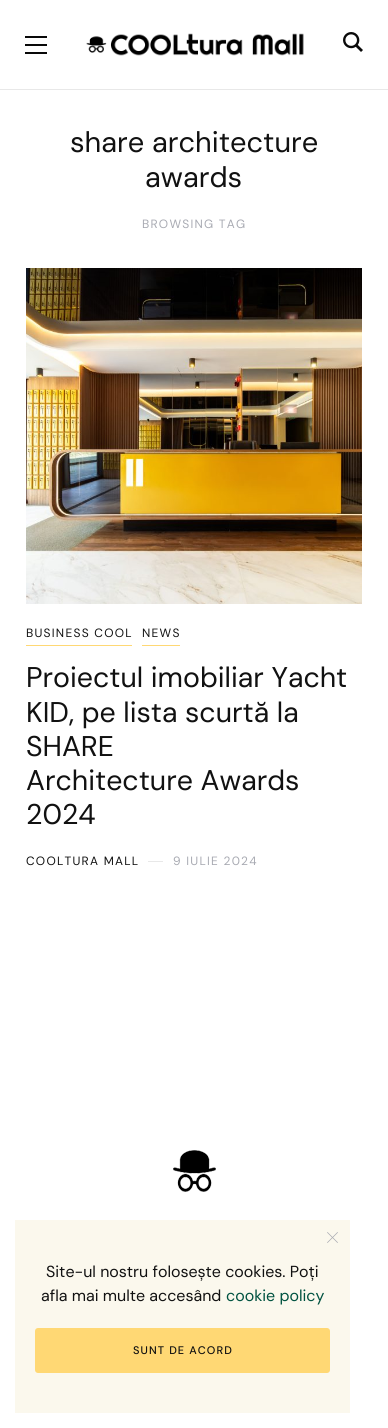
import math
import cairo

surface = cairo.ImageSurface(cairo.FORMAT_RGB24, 388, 1428)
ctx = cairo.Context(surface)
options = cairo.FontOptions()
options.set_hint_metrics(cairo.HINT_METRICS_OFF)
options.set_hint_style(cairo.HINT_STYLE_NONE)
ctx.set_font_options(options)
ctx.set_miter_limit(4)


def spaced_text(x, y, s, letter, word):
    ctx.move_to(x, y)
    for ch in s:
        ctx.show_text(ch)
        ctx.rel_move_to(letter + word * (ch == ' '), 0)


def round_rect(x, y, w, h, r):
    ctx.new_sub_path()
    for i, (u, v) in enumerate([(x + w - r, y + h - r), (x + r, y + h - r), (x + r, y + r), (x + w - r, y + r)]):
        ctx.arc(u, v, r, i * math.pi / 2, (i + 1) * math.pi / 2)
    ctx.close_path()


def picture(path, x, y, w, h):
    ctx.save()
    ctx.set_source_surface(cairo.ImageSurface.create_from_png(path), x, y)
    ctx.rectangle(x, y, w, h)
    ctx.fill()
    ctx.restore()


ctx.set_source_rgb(1, 1, 1)
ctx.paint()
ctx.set_source_rgb(0.91, 0.91, 0.91)
ctx.rectangle(0, 89, 388, 1)
ctx.fill()
ctx.set_source_rgb(0.039, 0.039, 0.039)
ctx.rectangle(25, 36, 22, 2)
ctx.fill()
ctx.rectangle(25, 52, 22, 2)
ctx.fill()
ctx.rectangle(25, 44, 22, 2)
ctx.fill()
picture("img1.png", 86, 33, 218, 23)
picture("img2.png", 343, 32, 20, 20)
ctx.select_font_face("DM Sans")
ctx.set_font_size(29)
ctx.set_source_rgb(0.067, 0.067, 0.067)
ctx.move_to(70, 152)
ctx.show_text("share architecture")
ctx.move_to(145, 187)
ctx.show_text("awards")
ctx.set_font_size(12)
ctx.set_source_rgb(0.659, 0.667, 0.698)
spaced_text(142, 228, "BROWSING TAG", 1.25, 0)
picture("img3.png", 26, 268, 336, 336)
ctx.set_source_rgb(1, 0.847, 0.455)
ctx.rectangle(26, 645, 106, 1)
ctx.fill()
ctx.set_source_rgb(0.067, 0.067, 0.067)
spaced_text(26, 637, "BUSINESS COOL", 1.25, 0)
ctx.set_source_rgb(1, 0.847, 0.455)
ctx.rectangle(142, 645, 38, 1)
ctx.fill()
ctx.set_source_rgb(0.067, 0.067, 0.067)
spaced_text(142, 637, "NEWS", 1.25, 0)
ctx.set_font_size(28.5)
ctx.move_to(26, 687)
ctx.show_text("Proiectul imobiliar Yacht")
ctx.move_to(26, 722)
ctx.show_text("KID, pe lista scurtă la")
ctx.move_to(26, 756)
ctx.show_text("SHARE")
ctx.move_to(26, 790)
ctx.show_text("Architecture Awards")
ctx.move_to(26, 824)
ctx.show_text("2024")
ctx.set_font_size(12)
spaced_text(26, 865, "COOLTURA MALL", 1.25, 0)
ctx.set_source_rgb(0.91, 0.91, 0.91)
ctx.rectangle(148, 861, 15, 1)
ctx.fill()
ctx.set_source_rgb(0.659, 0.667, 0.698)
spaced_text(173, 865, "9 IULIE 2024", 1.25, 0)
picture("img4.png", 173, 1150, 43, 42)
ctx.set_source_rgb(0.984, 0.969, 0.929)
ctx.rectangle(15, 1220, 335, 193)
ctx.fill()
ctx.set_source_rgb(0.659, 0.667, 0.698)
ctx.new_path()
ctx.move_to(327.5, 1232)
ctx.line_to(338, 1242.5)
ctx.line_to(337.5, 1243)
ctx.line_to(327, 1232.5)
ctx.close_path()
ctx.fill()
ctx.new_path()
ctx.move_to(327, 1242.5)
ctx.line_to(337.5, 1232)
ctx.line_to(338, 1232.5)
ctx.line_to(327.5, 1243)
ctx.close_path()
ctx.fill()
ctx.set_font_size(16)
ctx.set_source_rgb(0.067, 0.067, 0.067)
ctx.move_to(46, 1277)
ctx.show_text("Site-ul nostru folosește cookies. Poți")
ctx.move_to(41, 1301)
ctx.show_text("afla mai multe accesând")
ctx.set_source_rgb(0, 0.322, 0.251)
ctx.move_to(226, 1301)
ctx.show_text("cookie policy")
ctx.set_source_rgb(1, 0.847, 0.455)
round_rect(35, 1328, 295, 45, 3)
ctx.fill()
ctx.select_font_face("DM Sans Medium")
ctx.set_font_size(11)
ctx.set_source_rgb(0.067, 0.067, 0.067)
spaced_text(133, 1354, "SUNT DE ACORD", 1.1, 0)
surface.write_to_png("page.png")
